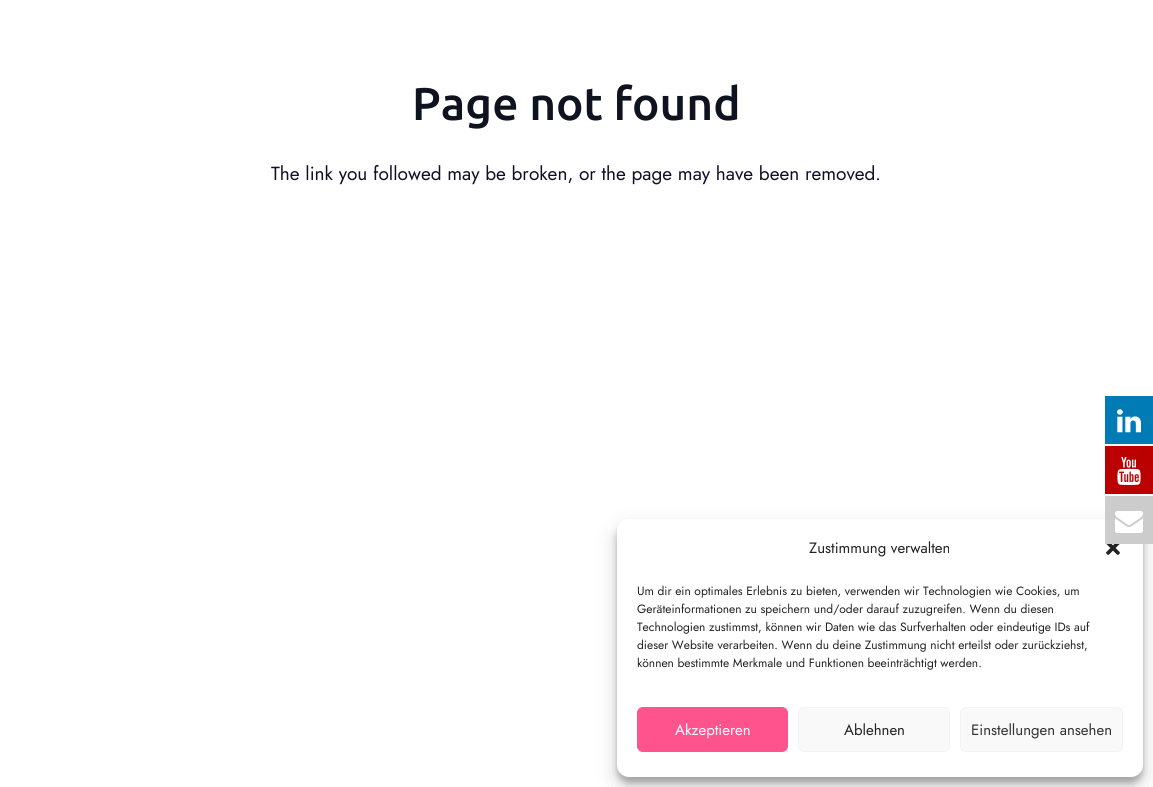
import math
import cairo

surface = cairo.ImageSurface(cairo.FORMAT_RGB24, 1153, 787)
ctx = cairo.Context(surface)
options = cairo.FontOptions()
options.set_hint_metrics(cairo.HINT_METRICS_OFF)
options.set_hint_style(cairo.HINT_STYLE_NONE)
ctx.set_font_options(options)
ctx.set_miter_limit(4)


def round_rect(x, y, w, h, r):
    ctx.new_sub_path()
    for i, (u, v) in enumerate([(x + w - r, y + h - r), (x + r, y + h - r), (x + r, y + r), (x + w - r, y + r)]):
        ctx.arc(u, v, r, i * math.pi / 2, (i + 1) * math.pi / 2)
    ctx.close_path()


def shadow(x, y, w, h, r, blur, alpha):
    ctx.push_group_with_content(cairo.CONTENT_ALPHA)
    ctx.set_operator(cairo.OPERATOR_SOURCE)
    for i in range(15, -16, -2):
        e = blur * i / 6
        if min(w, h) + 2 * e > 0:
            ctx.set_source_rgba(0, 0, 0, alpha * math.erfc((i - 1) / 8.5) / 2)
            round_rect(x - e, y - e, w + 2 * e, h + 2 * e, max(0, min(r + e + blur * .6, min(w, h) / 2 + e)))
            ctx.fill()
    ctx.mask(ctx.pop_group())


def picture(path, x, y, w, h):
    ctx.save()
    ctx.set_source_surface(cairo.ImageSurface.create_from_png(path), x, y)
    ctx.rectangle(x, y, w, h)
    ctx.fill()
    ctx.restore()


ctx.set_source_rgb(1, 1, 1)
ctx.paint()
ctx.select_font_face("Ubuntu Medium")
ctx.set_font_size(46)
ctx.set_source_rgb(0.059, 0.075, 0.122)
ctx.move_to(412, 120)
ctx.show_text("Page not found")
ctx.select_font_face("Jost")
ctx.set_font_size(19)
ctx.set_source_rgb(0.063, 0.063, 0.145)
ctx.move_to(271, 180)
ctx.show_text("The link you followed may be broken, or the page may have been removed.")
ctx.set_source_rgb(0, 0.482, 0.714)
ctx.rectangle(1105, 396, 48, 48)
ctx.fill()
picture("img1.png", 1117, 409, 24, 24)
ctx.set_source_rgb(0.733, 0, 0)
ctx.rectangle(1105, 446, 48, 48)
ctx.fill()
picture("img2.png", 1117, 457, 24, 28)
ctx.set_source_rgb(0, 0, 0)
shadow(617, 525, 526, 258, 12, 3, 0.23)
shadow(617, 529, 526, 258, 12, 10, 0.19)
ctx.set_source_rgb(1, 1, 1)
round_rect(617, 519, 526, 258, 12)
ctx.fill()
ctx.set_source_rgb(0.8, 0.8, 0.8)
ctx.rectangle(1105, 496, 48, 48)
ctx.fill()
picture("img3.png", 1115, 511, 28, 22)
ctx.set_font_size(15)
ctx.set_source_rgb(0.133, 0.133, 0.133)
ctx.move_to(809, 553)
ctx.show_text("Zustimmung verwalten")
picture("img4.png", 1106, 544, 14, 11)
ctx.set_font_size(12)
ctx.move_to(637, 595)
ctx.show_text("Um dir ein optimales Erlebnis zu bieten, verwenden wir Technologien wie Cookies, um")
ctx.move_to(637, 613)
ctx.show_text("Geräteinformationen zu speichern und/oder darauf zuzugreifen. Wenn du diesen")
ctx.move_to(637, 631)
ctx.show_text("Technologien zustimmst, können wir Daten wie das Surfverhalten oder eindeutige IDs auf")
ctx.move_to(637, 649)
ctx.show_text("dieser Website verarbeiten. Wenn du deine Zustimmung nicht erteilst oder zurückziehst,")
ctx.move_to(637, 667)
ctx.show_text("können bestimmte Merkmale und Funktionen beeinträchtigt werden.")
ctx.set_source_rgb(1, 0.325, 0.553)
round_rect(637.5, 707.5, 150, 44, 5.5)
ctx.fill_preserve()
ctx.set_line_width(1)
ctx.stroke()
ctx.set_font_size(15)
ctx.set_source_rgb(1, 1, 1)
ctx.move_to(675, 735)
ctx.show_text("Akzeptieren")
ctx.set_source_rgb(0.976, 0.976, 0.976)
round_rect(798.5, 707.5, 151, 44, 5.5)
ctx.fill_preserve()
ctx.set_source_rgb(0.949, 0.949, 0.949)
ctx.stroke()
ctx.set_source_rgb(0.133, 0.133, 0.133)
ctx.move_to(844, 735)
ctx.show_text("Ablehnen")
ctx.set_source_rgb(0.976, 0.976, 0.976)
round_rect(960.5, 707.5, 162, 44, 5.5)
ctx.fill_preserve()
ctx.set_source_rgb(0.949, 0.949, 0.949)
ctx.stroke()
ctx.set_source_rgb(0.2, 0.2, 0.2)
ctx.move_to(971, 735)
ctx.show_text("Einstellungen ansehen")
surface.write_to_png("page.png")
